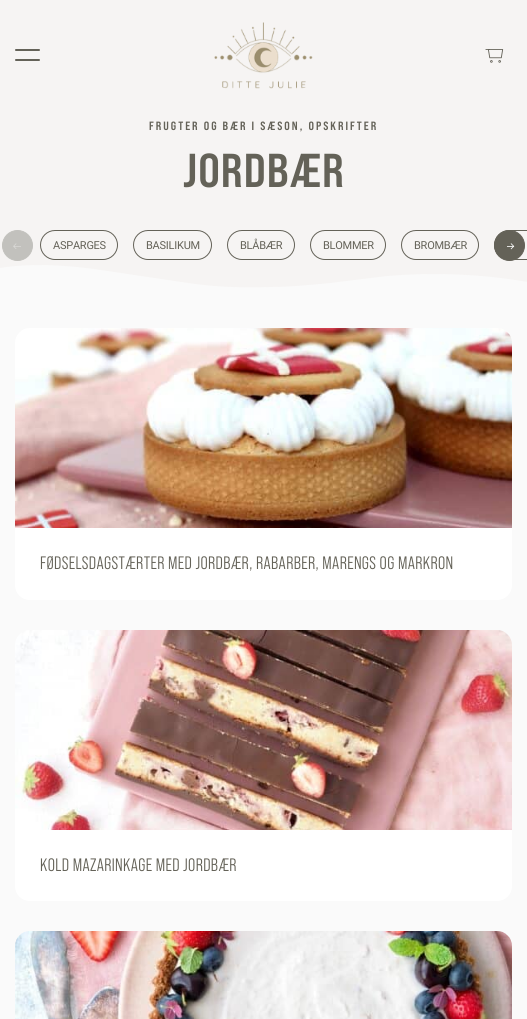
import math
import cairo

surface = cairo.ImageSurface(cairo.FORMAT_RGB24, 527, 1019)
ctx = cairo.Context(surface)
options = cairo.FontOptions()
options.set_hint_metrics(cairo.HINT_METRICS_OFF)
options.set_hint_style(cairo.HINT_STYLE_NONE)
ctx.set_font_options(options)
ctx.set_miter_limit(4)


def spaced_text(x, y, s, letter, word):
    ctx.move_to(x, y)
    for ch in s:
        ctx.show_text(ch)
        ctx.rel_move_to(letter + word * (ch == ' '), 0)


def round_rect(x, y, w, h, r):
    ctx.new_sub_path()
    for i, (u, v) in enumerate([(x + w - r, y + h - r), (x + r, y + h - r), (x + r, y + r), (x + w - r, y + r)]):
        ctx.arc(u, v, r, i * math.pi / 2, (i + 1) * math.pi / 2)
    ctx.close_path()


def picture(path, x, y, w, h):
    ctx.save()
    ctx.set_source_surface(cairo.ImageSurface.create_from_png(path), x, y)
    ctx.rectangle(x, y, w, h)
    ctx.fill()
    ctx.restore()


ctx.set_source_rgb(0.98, 0.98, 0.98)
ctx.paint()
ctx.set_source_rgb(0.961, 0.957, 0.953)
ctx.rectangle(0, 0, 527, 263)
ctx.fill()
ctx.set_source_rgb(0.392, 0.384, 0.345)
round_rect(15, 49, 25, 2, 1)
ctx.fill()
round_rect(15, 59, 25, 2, 1)
ctx.fill()
picture("img1.png", 214, 22, 99, 67)
picture("img2.png", 485, 49, 19, 14)
ctx.select_font_face("Bebas Neue", cairo.FONT_SLANT_NORMAL, cairo.FONT_WEIGHT_BOLD)
ctx.set_font_size(12)
spaced_text(149, 130, "FRUGTER OG BÆR I SÆSON, OPSKRIFTER", 2, 0)
ctx.set_font_size(47.5)
spaced_text(183, 187, "JORDBÆR", 1, 0)
ctx.set_source_rgb(0.761, 0.757, 0.741)
ctx.new_path()
ctx.arc(17.5, 245.5, 15, 0, 2 * math.pi)
ctx.fill_preserve()
ctx.set_line_width(1)
ctx.stroke()
picture("img3.png", 13, 243, 8, 6)
round_rect(40.5, 230.5, 77, 29, 14.5)
ctx.set_source_rgb(0.392, 0.384, 0.345)
ctx.stroke()
ctx.select_font_face("Heebo")
ctx.set_font_size(11)
spaced_text(53, 249, "ASPARGES", -0.25, 0)
round_rect(133.5, 230.5, 78, 29, 14.5)
ctx.stroke()
spaced_text(146, 249, "BASILIKUM", -0.25, 0)
round_rect(227.5, 230.5, 67, 29, 14.5)
ctx.stroke()
spaced_text(240, 249, "BLÅBÆR", -0.25, 0)
round_rect(310.5, 230.5, 75, 29, 14.5)
ctx.stroke()
spaced_text(323, 249, "BLOMMER", -0.25, 0)
round_rect(401.5, 230.5, 77, 29, 14.5)
ctx.stroke()
spaced_text(414, 249, "BROMBÆR", -0.25, 0)
round_rect(494.5, 230.5, 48, 29, 14.5)
ctx.stroke()
ctx.arc(509.5, 245.5, 15, 0, 2 * math.pi)
ctx.fill_preserve()
ctx.stroke()
picture("img4.png", 507, 243, 8, 7)
ctx.set_source_rgb(0.961, 0.957, 0.953)
ctx.new_path()
ctx.move_to(94, 269)
ctx.line_to(188, 283)
ctx.curve_to(215, 287, 242, 288, 270, 287)
ctx.curve_to(290, 287, 310, 285, 330, 283)
ctx.line_to(387, 276)
ctx.curve_to(434, 272, 482, 274, 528, 282)
ctx.line_to(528, 263)
ctx.line_to(0, 263)
ctx.line_to(0, 268)
ctx.curve_to(30, 263, 64, 265, 94, 269)
ctx.close_path()
ctx.fill()
picture("img5.png", 15, 328, 497, 200)
ctx.set_source_rgb(1, 1, 1)
ctx.new_path()
ctx.move_to(15, 528)
ctx.line_to(512, 528)
ctx.line_to(512, 585)
ctx.curve_to(512, 593.5, 505.5, 600, 497, 600)
ctx.line_to(30, 600)
ctx.curve_to(21.5, 600, 15, 593.5, 15, 585)
ctx.close_path()
ctx.fill()
ctx.select_font_face("Bebas Neue")
ctx.set_font_size(18)
ctx.set_source_rgb(0.392, 0.384, 0.345)
spaced_text(40, 569, "FØDSELSDAGSTÆRTER MED JORDBÆR, RABARBER, MARENGS OG MARKRON", 0.35, 0)
picture("img6.png", 15, 630, 497, 200)
ctx.set_source_rgb(1, 1, 1)
ctx.new_path()
ctx.move_to(15, 830)
ctx.line_to(512, 830)
ctx.line_to(512, 886)
ctx.curve_to(512, 894.5, 505.5, 901, 497, 901)
ctx.line_to(30, 901)
ctx.curve_to(21.5, 901, 15, 894.5, 15, 886)
ctx.close_path()
ctx.fill()
ctx.set_source_rgb(0.392, 0.384, 0.345)
spaced_text(40, 871, "KOLD MAZARINKAGE MED JORDBÆR", 0.35, 0)
picture("img7.png", 15, 931, 497, 88)
surface.write_to_png("page.png")
